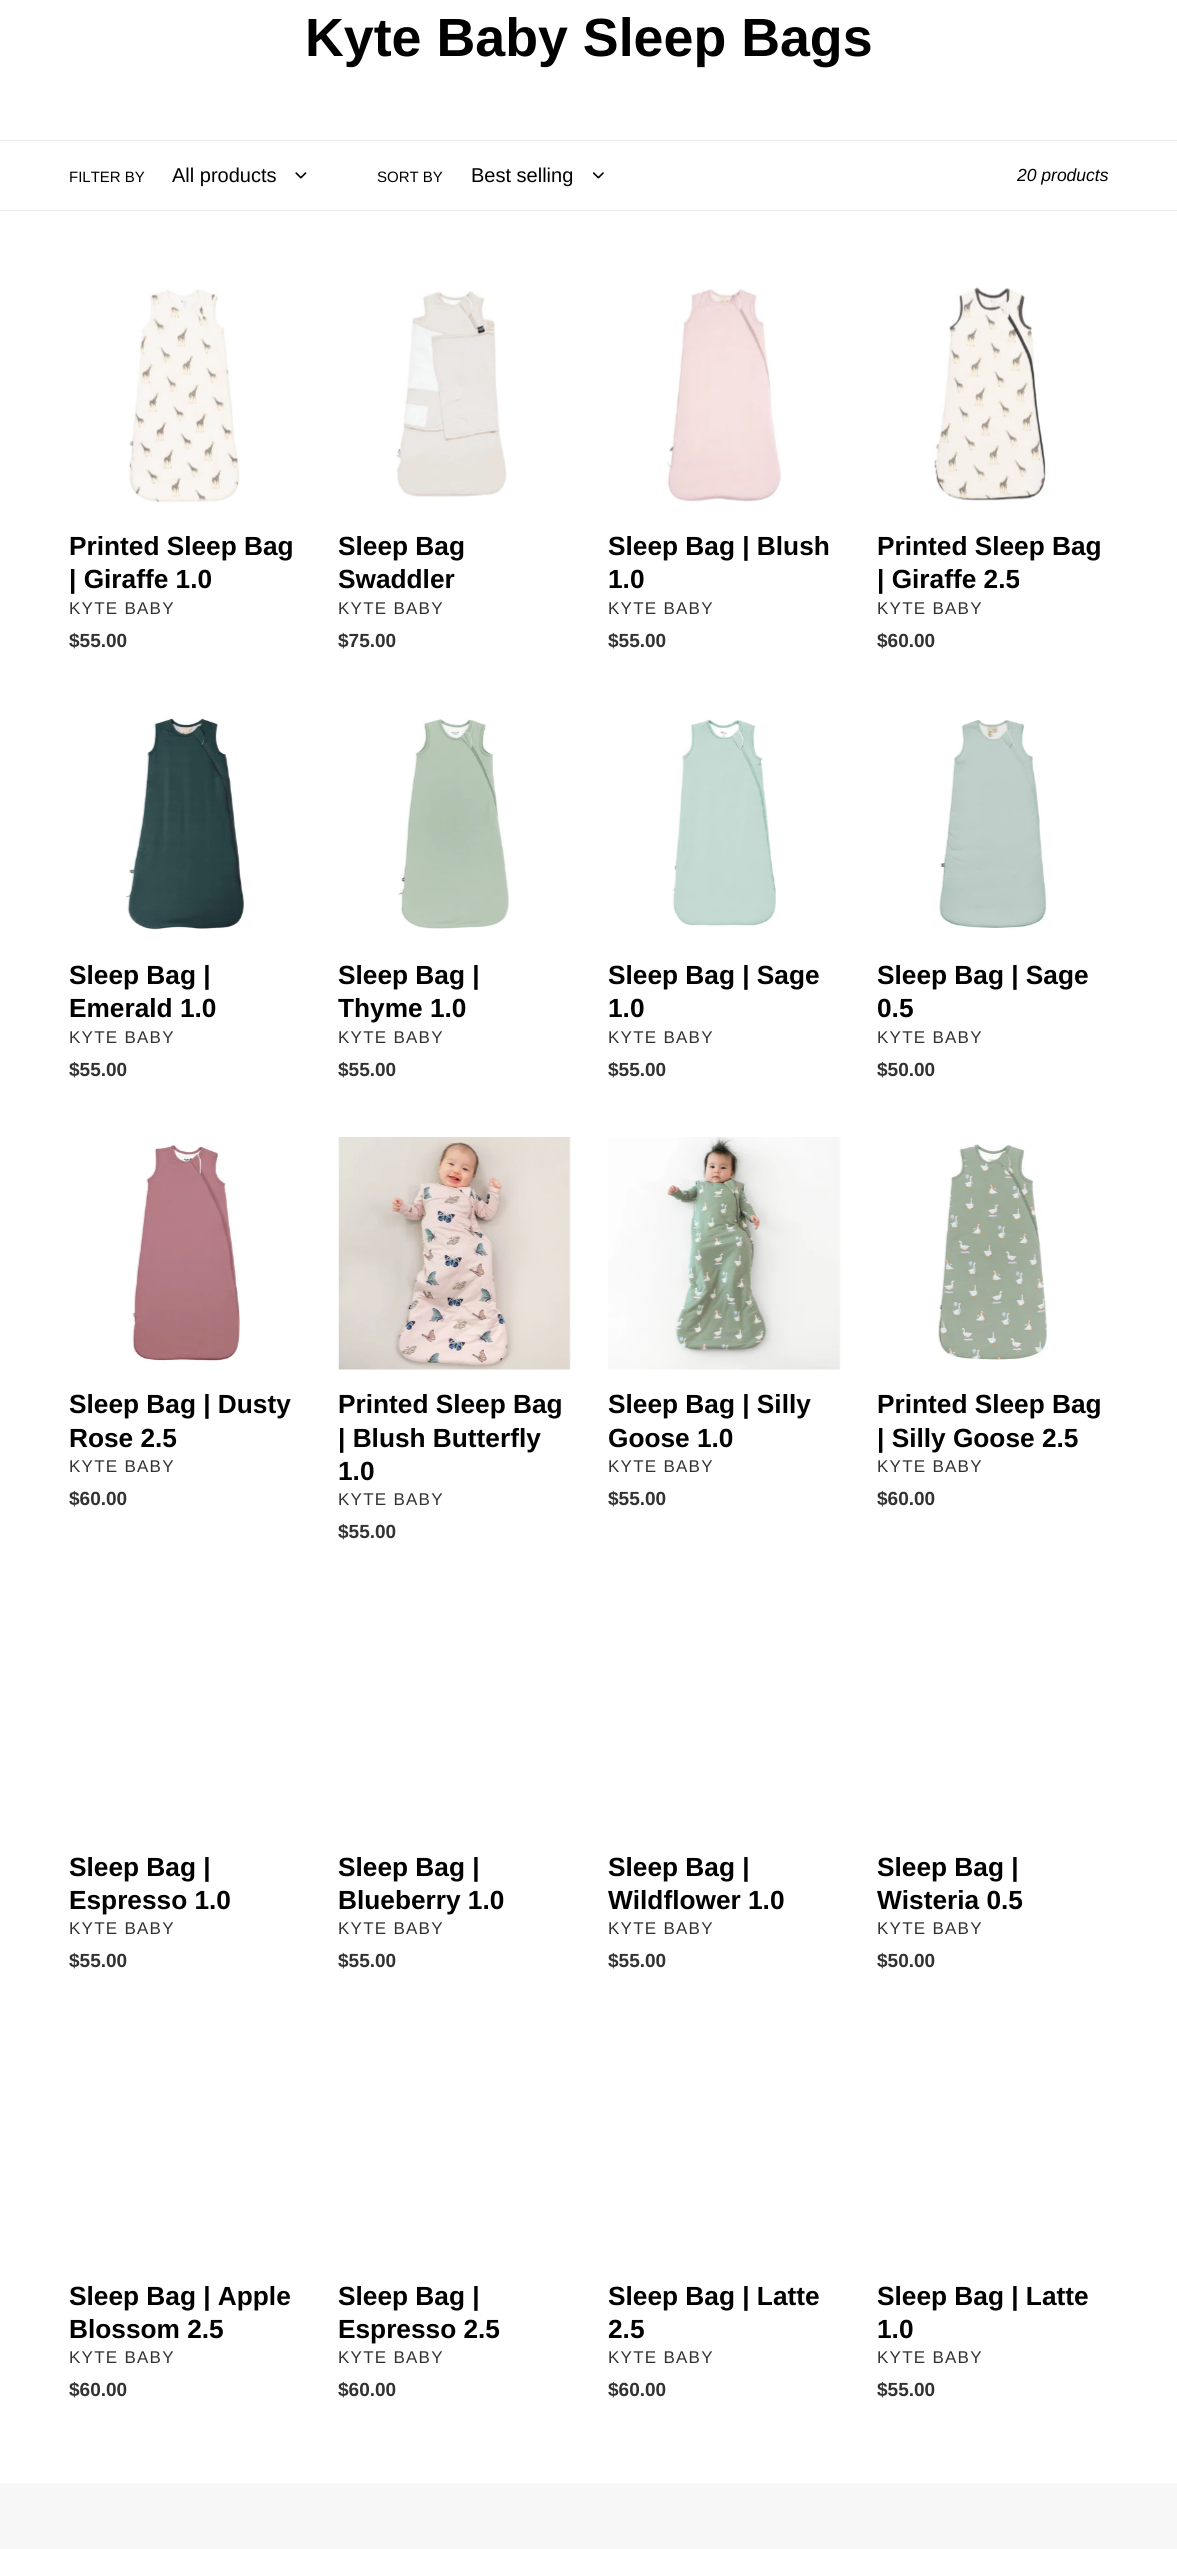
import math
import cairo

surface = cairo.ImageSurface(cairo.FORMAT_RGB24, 1177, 2549)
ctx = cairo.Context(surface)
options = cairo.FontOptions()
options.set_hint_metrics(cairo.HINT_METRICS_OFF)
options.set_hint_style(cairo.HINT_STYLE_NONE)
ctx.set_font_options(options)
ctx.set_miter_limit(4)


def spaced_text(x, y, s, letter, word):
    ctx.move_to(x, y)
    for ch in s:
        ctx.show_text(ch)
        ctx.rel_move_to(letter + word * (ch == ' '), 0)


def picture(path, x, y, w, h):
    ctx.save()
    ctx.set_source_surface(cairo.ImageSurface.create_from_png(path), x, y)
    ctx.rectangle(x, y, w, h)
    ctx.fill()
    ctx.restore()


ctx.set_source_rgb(1, 1, 1)
ctx.paint()
ctx.select_font_face("Liberation Sans", cairo.FONT_SLANT_NORMAL, cairo.FONT_WEIGHT_BOLD)
ctx.set_font_size(53.75)
ctx.set_source_rgb(0, 0, 0)
ctx.move_to(305, 56)
ctx.show_text("Kyte Baby Sleep Bags")
ctx.set_source_rgb(0.922, 0.922, 0.922)
ctx.rectangle(0, 140, 1177, 1)
ctx.fill()
ctx.rectangle(0, 210, 1177, 1)
ctx.fill()
ctx.select_font_face("Arimo")
ctx.set_font_size(15)
ctx.set_source_rgb(0, 0, 0)
ctx.move_to(69, 182)
ctx.show_text("FILTER BY")
ctx.set_font_size(20)
ctx.move_to(172, 182)
ctx.show_text("All products")
picture("img1.png", 295, 172, 12, 7)
ctx.set_font_size(15)
ctx.move_to(377, 182)
ctx.show_text("SORT BY")
ctx.set_font_size(20)
ctx.move_to(471, 182)
ctx.show_text("Best selling")
picture("img2.png", 593, 172, 11, 7)
ctx.select_font_face("Arimo", cairo.FONT_SLANT_ITALIC)
ctx.set_font_size(17.5)
ctx.move_to(1017, 181)
ctx.show_text("20 products")
picture("img3.png", 129, 289, 111, 214)
ctx.select_font_face("Liberation Sans", cairo.FONT_SLANT_NORMAL, cairo.FONT_WEIGHT_BOLD)
ctx.set_font_size(26.25)
ctx.move_to(69, 555)
ctx.show_text("Printed Sleep Bag")
ctx.move_to(69, 588)
ctx.show_text("| Giraffe 1.0")
ctx.select_font_face("Arimo")
ctx.set_font_size(17)
ctx.set_source_rgb(0.2, 0.196, 0.196)
spaced_text(69, 614, "KYTE BABY", 1.25, 0)
ctx.select_font_face("Arimo", cairo.FONT_SLANT_NORMAL, cairo.FONT_WEIGHT_BOLD)
ctx.set_font_size(19)
ctx.move_to(69, 647)
ctx.show_text("$55.00")
picture("img4.png", 396, 291, 111, 207)
ctx.select_font_face("Liberation Sans", cairo.FONT_SLANT_NORMAL, cairo.FONT_WEIGHT_BOLD)
ctx.set_font_size(26.25)
ctx.set_source_rgb(0, 0, 0)
ctx.move_to(338, 555)
ctx.show_text("Sleep Bag")
ctx.move_to(338, 588)
ctx.show_text("Swaddler")
ctx.select_font_face("Arimo")
ctx.set_font_size(17)
ctx.set_source_rgb(0.2, 0.196, 0.196)
spaced_text(338, 614, "KYTE BABY", 1.25, 0)
ctx.select_font_face("Arimo", cairo.FONT_SLANT_NORMAL, cairo.FONT_WEIGHT_BOLD)
ctx.set_font_size(19)
ctx.move_to(338, 647)
ctx.show_text("$75.00")
picture("img5.png", 666, 289, 115, 213)
ctx.select_font_face("Liberation Sans", cairo.FONT_SLANT_NORMAL, cairo.FONT_WEIGHT_BOLD)
ctx.set_font_size(26.25)
ctx.set_source_rgb(0, 0, 0)
ctx.move_to(608, 555)
ctx.show_text("Sleep Bag | Blush")
ctx.move_to(608, 588)
ctx.show_text("1.0")
ctx.select_font_face("Arimo")
ctx.set_font_size(17)
ctx.set_source_rgb(0.2, 0.196, 0.196)
spaced_text(608, 614, "KYTE BABY", 1.25, 0)
ctx.select_font_face("Arimo", cairo.FONT_SLANT_NORMAL, cairo.FONT_WEIGHT_BOLD)
ctx.set_font_size(19)
ctx.move_to(608, 647)
ctx.show_text("$55.00")
picture("img6.png", 934, 287, 113, 214)
ctx.select_font_face("Liberation Sans", cairo.FONT_SLANT_NORMAL, cairo.FONT_WEIGHT_BOLD)
ctx.set_font_size(26.25)
ctx.set_source_rgb(0, 0, 0)
ctx.move_to(877, 555)
ctx.show_text("Printed Sleep Bag")
ctx.move_to(877, 588)
ctx.show_text("| Giraffe 2.5")
ctx.select_font_face("Arimo")
ctx.set_font_size(17)
ctx.set_source_rgb(0.2, 0.196, 0.196)
spaced_text(877, 614, "KYTE BABY", 1.25, 0)
ctx.select_font_face("Arimo", cairo.FONT_SLANT_NORMAL, cairo.FONT_WEIGHT_BOLD)
ctx.set_font_size(19)
ctx.move_to(877, 647)
ctx.show_text("$60.00")
picture("img7.png", 125, 718, 120, 212)
ctx.select_font_face("Liberation Sans", cairo.FONT_SLANT_NORMAL, cairo.FONT_WEIGHT_BOLD)
ctx.set_font_size(26.25)
ctx.set_source_rgb(0, 0, 0)
ctx.move_to(69, 984)
ctx.show_text("Sleep Bag |")
ctx.move_to(69, 1017)
ctx.show_text("Emerald 1.0")
ctx.select_font_face("Arimo")
ctx.set_font_size(17)
ctx.set_source_rgb(0.2, 0.196, 0.196)
spaced_text(69, 1043, "KYTE BABY", 1.25, 0)
ctx.select_font_face("Arimo", cairo.FONT_SLANT_NORMAL, cairo.FONT_WEIGHT_BOLD)
ctx.set_font_size(19)
ctx.move_to(69, 1076)
ctx.show_text("$55.00")
picture("img8.png", 398, 719, 111, 210)
ctx.select_font_face("Liberation Sans", cairo.FONT_SLANT_NORMAL, cairo.FONT_WEIGHT_BOLD)
ctx.set_font_size(26.25)
ctx.set_source_rgb(0, 0, 0)
ctx.move_to(338, 984)
ctx.show_text("Sleep Bag |")
ctx.move_to(338, 1017)
ctx.show_text("Thyme 1.0")
ctx.select_font_face("Arimo")
ctx.set_font_size(17)
ctx.set_source_rgb(0.2, 0.196, 0.196)
spaced_text(338, 1043, "KYTE BABY", 1.25, 0)
ctx.select_font_face("Arimo", cairo.FONT_SLANT_NORMAL, cairo.FONT_WEIGHT_BOLD)
ctx.set_font_size(19)
ctx.move_to(338, 1076)
ctx.show_text("$55.00")
picture("img9.png", 672, 719, 104, 208)
ctx.select_font_face("Liberation Sans", cairo.FONT_SLANT_NORMAL, cairo.FONT_WEIGHT_BOLD)
ctx.set_font_size(26.25)
ctx.set_source_rgb(0, 0, 0)
ctx.move_to(608, 984)
ctx.show_text("Sleep Bag | Sage")
ctx.move_to(608, 1017)
ctx.show_text("1.0")
ctx.select_font_face("Arimo")
ctx.set_font_size(17)
ctx.set_source_rgb(0.2, 0.196, 0.196)
spaced_text(608, 1043, "KYTE BABY", 1.25, 0)
ctx.select_font_face("Arimo", cairo.FONT_SLANT_NORMAL, cairo.FONT_WEIGHT_BOLD)
ctx.set_font_size(19)
ctx.move_to(608, 1076)
ctx.show_text("$55.00")
picture("img10.png", 939, 720, 108, 209)
ctx.select_font_face("Liberation Sans", cairo.FONT_SLANT_NORMAL, cairo.FONT_WEIGHT_BOLD)
ctx.set_font_size(26.25)
ctx.set_source_rgb(0, 0, 0)
ctx.move_to(877, 984)
ctx.show_text("Sleep Bag | Sage")
ctx.move_to(877, 1017)
ctx.show_text("0.5")
ctx.select_font_face("Arimo")
ctx.set_font_size(17)
ctx.set_source_rgb(0.2, 0.196, 0.196)
spaced_text(877, 1043, "KYTE BABY", 1.25, 0)
ctx.select_font_face("Arimo", cairo.FONT_SLANT_NORMAL, cairo.FONT_WEIGHT_BOLD)
ctx.set_font_size(19)
ctx.move_to(877, 1076)
ctx.show_text("$50.00")
picture("img11.png", 132, 1145, 108, 219)
ctx.select_font_face("Liberation Sans", cairo.FONT_SLANT_NORMAL, cairo.FONT_WEIGHT_BOLD)
ctx.set_font_size(26.25)
ctx.set_source_rgb(0, 0, 0)
ctx.move_to(69, 1413)
ctx.show_text("Sleep Bag | Dusty")
ctx.move_to(69, 1447)
ctx.show_text("Rose 2.5")
ctx.select_font_face("Arimo")
ctx.set_font_size(17)
ctx.set_source_rgb(0.2, 0.196, 0.196)
spaced_text(69, 1472, "KYTE BABY", 1.25, 0)
ctx.select_font_face("Arimo", cairo.FONT_SLANT_NORMAL, cairo.FONT_WEIGHT_BOLD)
ctx.set_font_size(19)
ctx.move_to(69, 1505)
ctx.show_text("$60.00")
picture("img12.png", 338, 1137, 233, 233)
ctx.select_font_face("Liberation Sans", cairo.FONT_SLANT_NORMAL, cairo.FONT_WEIGHT_BOLD)
ctx.set_font_size(26.25)
ctx.set_source_rgb(0, 0, 0)
ctx.move_to(338, 1413)
ctx.show_text("Printed Sleep Bag")
ctx.move_to(338, 1447)
ctx.show_text("| Blush Butterfly")
ctx.move_to(338, 1480)
ctx.show_text("1.0")
ctx.select_font_face("Arimo")
ctx.set_font_size(17)
ctx.set_source_rgb(0.2, 0.196, 0.196)
spaced_text(338, 1505, "KYTE BABY", 1.25, 0)
ctx.select_font_face("Arimo", cairo.FONT_SLANT_NORMAL, cairo.FONT_WEIGHT_BOLD)
ctx.set_font_size(19)
ctx.move_to(338, 1538)
ctx.show_text("$55.00")
picture("img13.png", 608, 1137, 233, 233)
ctx.select_font_face("Liberation Sans", cairo.FONT_SLANT_NORMAL, cairo.FONT_WEIGHT_BOLD)
ctx.set_font_size(26.25)
ctx.set_source_rgb(0, 0, 0)
ctx.move_to(608, 1413)
ctx.show_text("Sleep Bag | Silly")
ctx.move_to(608, 1447)
ctx.show_text("Goose 1.0")
ctx.select_font_face("Arimo")
ctx.set_font_size(17)
ctx.set_source_rgb(0.2, 0.196, 0.196)
spaced_text(608, 1472, "KYTE BABY", 1.25, 0)
ctx.select_font_face("Arimo", cairo.FONT_SLANT_NORMAL, cairo.FONT_WEIGHT_BOLD)
ctx.set_font_size(19)
ctx.move_to(608, 1505)
ctx.show_text("$55.00")
picture("img14.png", 938, 1144, 110, 216)
ctx.select_font_face("Liberation Sans", cairo.FONT_SLANT_NORMAL, cairo.FONT_WEIGHT_BOLD)
ctx.set_font_size(26.25)
ctx.set_source_rgb(0, 0, 0)
ctx.move_to(877, 1413)
ctx.show_text("Printed Sleep Bag")
ctx.move_to(877, 1447)
ctx.show_text("| Silly Goose 2.5")
ctx.select_font_face("Arimo")
ctx.set_font_size(17)
ctx.set_source_rgb(0.2, 0.196, 0.196)
spaced_text(877, 1472, "KYTE BABY", 1.25, 0)
ctx.select_font_face("Arimo", cairo.FONT_SLANT_NORMAL, cairo.FONT_WEIGHT_BOLD)
ctx.set_font_size(19)
ctx.move_to(877, 1505)
ctx.show_text("$60.00")
ctx.select_font_face("Liberation Sans", cairo.FONT_SLANT_NORMAL, cairo.FONT_WEIGHT_BOLD)
ctx.set_font_size(26.25)
ctx.set_source_rgb(0, 0, 0)
ctx.move_to(69, 1876)
ctx.show_text("Sleep Bag |")
ctx.move_to(69, 1909)
ctx.show_text("Espresso 1.0")
ctx.select_font_face("Arimo")
ctx.set_font_size(17)
ctx.set_source_rgb(0.2, 0.196, 0.196)
spaced_text(69, 1934, "KYTE BABY", 1.25, 0)
ctx.select_font_face("Arimo", cairo.FONT_SLANT_NORMAL, cairo.FONT_WEIGHT_BOLD)
ctx.set_font_size(19)
ctx.move_to(69, 1967)
ctx.show_text("$55.00")
ctx.select_font_face("Liberation Sans", cairo.FONT_SLANT_NORMAL, cairo.FONT_WEIGHT_BOLD)
ctx.set_font_size(26.25)
ctx.set_source_rgb(0, 0, 0)
ctx.move_to(338, 1876)
ctx.show_text("Sleep Bag |")
ctx.move_to(338, 1909)
ctx.show_text("Blueberry 1.0")
ctx.select_font_face("Arimo")
ctx.set_font_size(17)
ctx.set_source_rgb(0.2, 0.196, 0.196)
spaced_text(338, 1934, "KYTE BABY", 1.25, 0)
ctx.select_font_face("Arimo", cairo.FONT_SLANT_NORMAL, cairo.FONT_WEIGHT_BOLD)
ctx.set_font_size(19)
ctx.move_to(338, 1967)
ctx.show_text("$55.00")
ctx.select_font_face("Liberation Sans", cairo.FONT_SLANT_NORMAL, cairo.FONT_WEIGHT_BOLD)
ctx.set_font_size(26.25)
ctx.set_source_rgb(0, 0, 0)
ctx.move_to(608, 1876)
ctx.show_text("Sleep Bag |")
ctx.move_to(608, 1909)
ctx.show_text("Wildflower 1.0")
ctx.select_font_face("Arimo")
ctx.set_font_size(17)
ctx.set_source_rgb(0.2, 0.196, 0.196)
spaced_text(608, 1934, "KYTE BABY", 1.25, 0)
ctx.select_font_face("Arimo", cairo.FONT_SLANT_NORMAL, cairo.FONT_WEIGHT_BOLD)
ctx.set_font_size(19)
ctx.move_to(608, 1967)
ctx.show_text("$55.00")
ctx.select_font_face("Liberation Sans", cairo.FONT_SLANT_NORMAL, cairo.FONT_WEIGHT_BOLD)
ctx.set_font_size(26.25)
ctx.set_source_rgb(0, 0, 0)
ctx.move_to(877, 1876)
ctx.show_text("Sleep Bag |")
ctx.move_to(877, 1909)
ctx.show_text("Wisteria 0.5")
ctx.select_font_face("Arimo")
ctx.set_font_size(17)
ctx.set_source_rgb(0.2, 0.196, 0.196)
spaced_text(877, 1934, "KYTE BABY", 1.25, 0)
ctx.select_font_face("Arimo", cairo.FONT_SLANT_NORMAL, cairo.FONT_WEIGHT_BOLD)
ctx.set_font_size(19)
ctx.move_to(877, 1967)
ctx.show_text("$50.00")
ctx.select_font_face("Liberation Sans", cairo.FONT_SLANT_NORMAL, cairo.FONT_WEIGHT_BOLD)
ctx.set_font_size(26.25)
ctx.set_source_rgb(0, 0, 0)
ctx.move_to(69, 2305)
ctx.show_text("Sleep Bag | Apple")
ctx.move_to(69, 2338)
ctx.show_text("Blossom 2.5")
ctx.select_font_face("Arimo")
ctx.set_font_size(17)
ctx.set_source_rgb(0.2, 0.196, 0.196)
spaced_text(69, 2363, "KYTE BABY", 1.25, 0)
ctx.select_font_face("Arimo", cairo.FONT_SLANT_NORMAL, cairo.FONT_WEIGHT_BOLD)
ctx.set_font_size(19)
ctx.move_to(69, 2396)
ctx.show_text("$60.00")
ctx.select_font_face("Liberation Sans", cairo.FONT_SLANT_NORMAL, cairo.FONT_WEIGHT_BOLD)
ctx.set_font_size(26.25)
ctx.set_source_rgb(0, 0, 0)
ctx.move_to(338, 2305)
ctx.show_text("Sleep Bag |")
ctx.move_to(338, 2338)
ctx.show_text("Espresso 2.5")
ctx.select_font_face("Arimo")
ctx.set_font_size(17)
ctx.set_source_rgb(0.2, 0.196, 0.196)
spaced_text(338, 2363, "KYTE BABY", 1.25, 0)
ctx.select_font_face("Arimo", cairo.FONT_SLANT_NORMAL, cairo.FONT_WEIGHT_BOLD)
ctx.set_font_size(19)
ctx.move_to(338, 2396)
ctx.show_text("$60.00")
ctx.select_font_face("Liberation Sans", cairo.FONT_SLANT_NORMAL, cairo.FONT_WEIGHT_BOLD)
ctx.set_font_size(26.25)
ctx.set_source_rgb(0, 0, 0)
ctx.move_to(608, 2305)
ctx.show_text("Sleep Bag | Latte")
ctx.move_to(608, 2338)
ctx.show_text("2.5")
ctx.select_font_face("Arimo")
ctx.set_font_size(17)
ctx.set_source_rgb(0.2, 0.196, 0.196)
spaced_text(608, 2363, "KYTE BABY", 1.25, 0)
ctx.select_font_face("Arimo", cairo.FONT_SLANT_NORMAL, cairo.FONT_WEIGHT_BOLD)
ctx.set_font_size(19)
ctx.move_to(608, 2396)
ctx.show_text("$60.00")
ctx.select_font_face("Liberation Sans", cairo.FONT_SLANT_NORMAL, cairo.FONT_WEIGHT_BOLD)
ctx.set_font_size(26.25)
ctx.set_source_rgb(0, 0, 0)
ctx.move_to(877, 2305)
ctx.show_text("Sleep Bag | Latte")
ctx.move_to(877, 2338)
ctx.show_text("1.0")
ctx.select_font_face("Arimo")
ctx.set_font_size(17)
ctx.set_source_rgb(0.2, 0.196, 0.196)
spaced_text(877, 2363, "KYTE BABY", 1.25, 0)
ctx.select_font_face("Arimo", cairo.FONT_SLANT_NORMAL, cairo.FONT_WEIGHT_BOLD)
ctx.set_font_size(19)
ctx.move_to(877, 2396)
ctx.show_text("$55.00")
ctx.set_source_rgb(0.965, 0.965, 0.965)
ctx.rectangle(0, 2483, 1177, 66)
ctx.fill()
surface.write_to_png("page.png")
